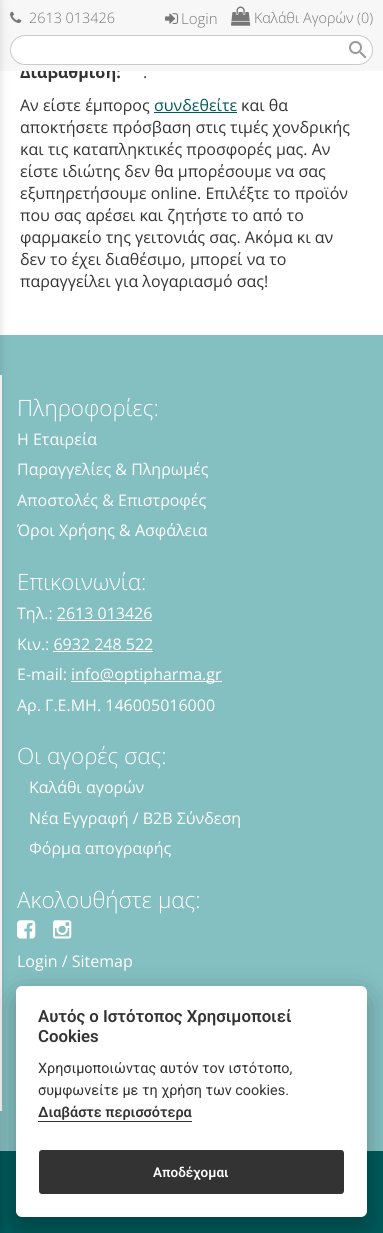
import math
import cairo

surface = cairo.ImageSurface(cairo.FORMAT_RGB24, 383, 1233)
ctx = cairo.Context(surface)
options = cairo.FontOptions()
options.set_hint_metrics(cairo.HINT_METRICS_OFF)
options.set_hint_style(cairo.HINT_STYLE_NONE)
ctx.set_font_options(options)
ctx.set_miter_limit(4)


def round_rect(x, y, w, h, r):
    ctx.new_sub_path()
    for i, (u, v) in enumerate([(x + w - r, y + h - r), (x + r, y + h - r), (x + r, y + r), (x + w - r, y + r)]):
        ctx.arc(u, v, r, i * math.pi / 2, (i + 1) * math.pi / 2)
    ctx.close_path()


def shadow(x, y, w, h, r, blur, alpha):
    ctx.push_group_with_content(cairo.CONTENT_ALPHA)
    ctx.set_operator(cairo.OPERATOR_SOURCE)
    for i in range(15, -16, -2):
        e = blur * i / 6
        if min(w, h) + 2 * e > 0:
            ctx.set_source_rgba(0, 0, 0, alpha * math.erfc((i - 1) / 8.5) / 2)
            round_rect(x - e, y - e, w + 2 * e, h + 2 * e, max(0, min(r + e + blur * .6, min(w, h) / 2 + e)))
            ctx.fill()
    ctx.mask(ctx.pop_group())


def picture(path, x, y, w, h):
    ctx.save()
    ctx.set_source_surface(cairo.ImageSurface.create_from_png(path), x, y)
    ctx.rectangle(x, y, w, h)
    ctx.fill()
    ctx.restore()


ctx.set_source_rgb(1, 1, 1)
ctx.paint()
ctx.select_font_face("Open Sans", cairo.FONT_SLANT_NORMAL, cairo.FONT_WEIGHT_BOLD)
ctx.set_font_size(16)
ctx.set_source_rgb(0.2, 0.2, 0.2)
ctx.move_to(20, 78)
ctx.show_text("Διαβάθμιση:")
ctx.set_source_rgb(0.965, 0.965, 0.965)
ctx.rectangle(0, 0, 383, 71)
ctx.fill()
picture("img1.png", 10, 11, 12, 12)
ctx.set_source_rgb(1, 1, 1)
round_rect(10.5, 35.5, 362, 29, 14.5)
ctx.fill_preserve()
ctx.set_source_rgb(0.792, 0.792, 0.792)
ctx.set_line_width(1)
ctx.stroke()
ctx.set_source_rgb(0.518, 0.749, 0.757)
ctx.rectangle(0, 335, 383, 816)
ctx.fill()
ctx.set_source_rgb(1, 1, 1)
ctx.rectangle(0, 375, 2, 736)
ctx.fill()
ctx.set_source_rgb(0, 0.349, 0.353)
ctx.rectangle(0, 1151, 383, 82)
ctx.fill()
ctx.set_source_rgb(0, 0, 0)
shadow(-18, 0, 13, 1233, 0, 6, 0.4)
ctx.select_font_face("Open Sans Light")
ctx.set_font_size(14.4)
ctx.set_source_rgb(0.467, 0.467, 0.467)
ctx.move_to(29, 23)
ctx.show_text("2613 013426")
picture("img2.png", 165, 13, 14, 11)
ctx.set_font_size(15)
ctx.move_to(181, 24)
ctx.show_text("Login")
picture("img3.png", 231, 6, 20, 20)
ctx.set_font_size(14.4)
ctx.move_to(254, 23)
ctx.show_text("Καλάθι Αγορών (0)")
picture("img4.png", 349, 41, 18, 18)
ctx.select_font_face("Open Sans")
ctx.set_font_size(16)
ctx.set_source_rgb(0.2, 0.2, 0.2)
ctx.move_to(143, 78)
ctx.show_text(".")
ctx.move_to(20, 111)
ctx.show_text("Αν είστε έμπορος")
ctx.set_source_rgb(0, 0.349, 0.353)
ctx.move_to(154, 111)
ctx.show_text("συνδεθείτε")
ctx.rectangle(154, 112, 83, 1)
ctx.fill()
ctx.set_source_rgb(0.2, 0.2, 0.2)
ctx.move_to(241, 111)
ctx.show_text("και θα")
ctx.move_to(20, 133)
ctx.show_text("αποκτήσετε πρόσβαση στις τιμές χονδρικής")
ctx.move_to(20, 155)
ctx.show_text("και τις καταπληκτικές προσφορές μας. Αν")
ctx.move_to(20, 177)
ctx.show_text("είστε ιδιώτης δεν θα μπορέσουμε να σας")
ctx.move_to(20, 199)
ctx.show_text("εξυπηρετήσουμε online. Επιλέξτε το προϊόν")
ctx.move_to(20, 221)
ctx.show_text("που σας αρέσει και ζητήστε το από το")
ctx.move_to(20, 243)
ctx.show_text("φαρμακείο της γειτονιάς σας. Ακόμα κι αν")
ctx.move_to(20, 265)
ctx.show_text("δεν το έχει διαθέσιμο, μπορεί να το")
ctx.move_to(20, 287)
ctx.show_text("παραγγείλει για λογαριασμό σας!")
ctx.select_font_face("Open Sans Light")
ctx.set_font_size(22.5)
ctx.set_source_rgb(1, 1, 1)
ctx.move_to(17, 416)
ctx.show_text("Πληροφορίες:")
ctx.select_font_face("Open Sans")
ctx.set_font_size(16)
ctx.move_to(17, 445)
ctx.show_text("Η Εταιρεία")
ctx.move_to(17, 475)
ctx.show_text("Παραγγελίες & Πληρωμές")
ctx.move_to(17, 506)
ctx.show_text("Αποστολές & Επιστροφές")
ctx.move_to(17, 536)
ctx.show_text("Όροι Χρήσης & Ασφάλεια")
ctx.select_font_face("Open Sans Light")
ctx.set_font_size(22.5)
ctx.move_to(17, 590)
ctx.show_text("Επικοινωνία:")
ctx.select_font_face("Open Sans")
ctx.set_font_size(16)
ctx.move_to(17, 619)
ctx.show_text("Τηλ.: 2613 013426")
ctx.rectangle(57, 620, 95, 1)
ctx.fill()
ctx.move_to(17, 650)
ctx.show_text("Κιν.: 6932 248 522")
ctx.rectangle(53, 651, 100, 1)
ctx.fill()
ctx.move_to(17, 680)
ctx.show_text("E-mail:")
ctx.rectangle(71, 681, 151, 1)
ctx.fill()
ctx.move_to(71, 680)
ctx.show_text("info@optipharma.gr")
ctx.move_to(17, 711)
ctx.show_text("Αρ. Γ.Ε.ΜΗ. 146005016000")
ctx.select_font_face("Open Sans Light")
ctx.set_font_size(22.5)
ctx.move_to(17, 764)
ctx.show_text("Οι αγορές σας:")
ctx.select_font_face("Open Sans")
ctx.set_font_size(16)
ctx.move_to(29, 793)
ctx.show_text("Καλάθι αγορών")
ctx.move_to(29, 824)
ctx.show_text("Νέα Εγγραφή / B2B Σύνδεση")
ctx.move_to(29, 854)
ctx.show_text("Φόρμα απογραφής")
ctx.select_font_face("Open Sans Light")
ctx.set_font_size(22.5)
ctx.move_to(17, 908)
ctx.show_text("Ακολουθήστε μας:")
picture("img5.png", 17, 920, 19, 19)
picture("img6.png", 53, 920, 19, 19)
ctx.select_font_face("Open Sans")
ctx.set_font_size(16)
ctx.move_to(17, 967)
ctx.show_text("Login / Sitemap")
ctx.set_source_rgb(0.008, 0.008, 0.012)
shadow(16, 996, 351, 231, 6, 15, 0.28)
ctx.set_source_rgb(1, 1, 1)
round_rect(16, 986, 351, 231, 6)
ctx.fill()
ctx.select_font_face("Roboto SemiBold")
ctx.set_font_size(16.75)
ctx.set_source_rgb(0.2, 0.2, 0.2)
ctx.move_to(38, 1022)
ctx.show_text("Αυτός ο Ιστότοπος Χρησιμοποιεί")
ctx.move_to(38, 1042)
ctx.show_text("Cookies")
ctx.select_font_face("Roboto")
ctx.set_font_size(14.4)
ctx.move_to(38, 1073)
ctx.show_text("Χρησιμοποιώντας αυτόν τον ιστότοπο,")
ctx.move_to(38, 1095)
ctx.show_text("συμφωνείτε με τη χρήση των cookies.")
ctx.select_font_face("Roboto SemiBold")
ctx.move_to(38, 1117)
ctx.show_text("Διαβάστε περισσότερα")
ctx.rectangle(38, 1121, 154, 1)
ctx.fill()
round_rect(38.5, 1149.5, 306, 45, 3.5)
ctx.fill_preserve()
ctx.set_source_rgb(1, 1, 1)
ctx.stroke()
ctx.set_font_size(13.5)
ctx.move_to(153, 1177)
ctx.show_text("Αποδέχομαι")
surface.write_to_png("page.png")
